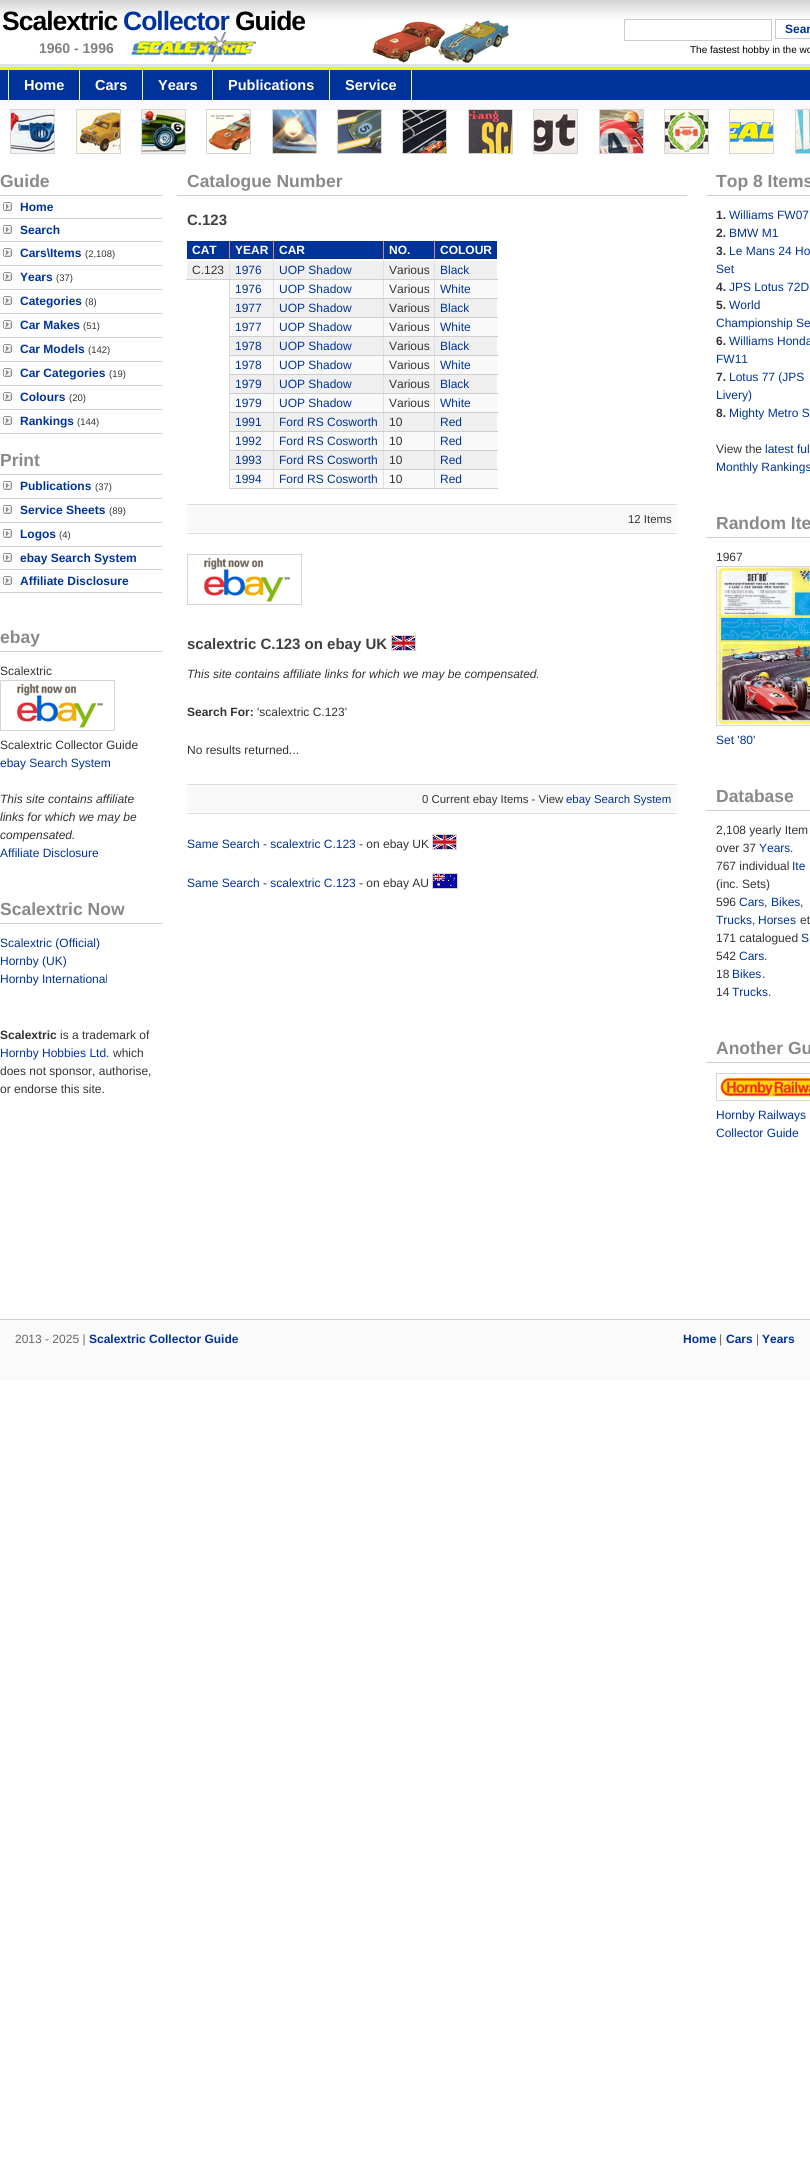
import math
import cairo

surface = cairo.ImageSurface(cairo.FORMAT_RGB24, 810, 2161)
ctx = cairo.Context(surface)
options = cairo.FontOptions()
options.set_hint_metrics(cairo.HINT_METRICS_OFF)
options.set_hint_style(cairo.HINT_STYLE_NONE)
ctx.set_font_options(options)
ctx.set_miter_limit(4)


def spaced_text(x, y, s, letter, word):
    ctx.move_to(x, y)
    for ch in s:
        ctx.show_text(ch)
        ctx.rel_move_to(letter + word * (ch == ' '), 0)


def picture(path, x, y, w, h):
    ctx.save()
    ctx.set_source_surface(cairo.ImageSurface.create_from_png(path), x, y)
    ctx.rectangle(x, y, w, h)
    ctx.fill()
    ctx.restore()


ctx.set_source_rgb(1, 1, 1)
ctx.paint()
picture("img1.png", 0, 0, 810, 111)
ctx.select_font_face("Liberation Sans", cairo.FONT_SLANT_NORMAL, cairo.FONT_WEIGHT_BOLD)
ctx.set_font_size(26.5)
ctx.set_source_rgb(0, 0, 0)
spaced_text(2, 30, "Scalextric", -1, 0)
ctx.set_source_rgb(0, 0.2, 0.6)
spaced_text(123, 30, "Collector", -1, 0)
ctx.set_source_rgb(0, 0, 0)
spaced_text(235, 30, "Guide", -1, 0)
picture("img2.png", 370, 20, 140, 43)
ctx.rectangle(624.5, 19.5, 147, 21)
ctx.set_source_rgb(0.8, 0.8, 0.8)
ctx.set_line_width(1)
ctx.stroke()
ctx.rectangle(775.5, 19.5, 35, 19)
ctx.stroke()
ctx.set_font_size(12)
ctx.set_source_rgb(0, 0.2, 0.6)
ctx.move_to(785, 33)
ctx.show_text("Sear")
ctx.set_font_size(14)
ctx.set_source_rgb(0.502, 0.502, 0.502)
ctx.move_to(39, 53)
ctx.show_text("1960 - 1996")
picture("img3.png", 131, 32, 125, 30)
ctx.select_font_face("Liberation Sans")
ctx.set_font_size(10)
ctx.set_source_rgb(0, 0, 0)
ctx.move_to(690, 53)
ctx.show_text("The fastest hobby in the wo")
ctx.set_source_rgb(0.933, 1, 0.4)
ctx.rectangle(79, 70, 1, 30)
ctx.fill()
ctx.rectangle(8, 70, 1, 30)
ctx.fill()
ctx.select_font_face("Liberation Sans", cairo.FONT_SLANT_NORMAL, cairo.FONT_WEIGHT_BOLD)
ctx.set_font_size(14.5)
ctx.set_source_rgb(1, 1, 1)
ctx.move_to(24, 90)
ctx.show_text("Home")
ctx.set_source_rgb(0.933, 1, 0.4)
ctx.rectangle(142, 70, 1, 30)
ctx.fill()
ctx.set_source_rgb(1, 1, 1)
ctx.move_to(95, 90)
ctx.show_text("Cars")
ctx.set_source_rgb(0.933, 1, 0.4)
ctx.rectangle(212, 70, 1, 30)
ctx.fill()
ctx.set_source_rgb(1, 1, 1)
ctx.move_to(158, 90)
ctx.show_text("Years")
ctx.set_source_rgb(0.933, 1, 0.4)
ctx.rectangle(329, 70, 1, 30)
ctx.fill()
ctx.set_source_rgb(1, 1, 1)
ctx.move_to(228, 90)
ctx.show_text("Publications")
ctx.set_source_rgb(0.933, 1, 0.4)
ctx.rectangle(411, 70, 1, 30)
ctx.fill()
ctx.set_source_rgb(1, 1, 1)
ctx.move_to(345, 90)
ctx.show_text("Service")
ctx.rectangle(10.5, 109.5, 44, 44)
ctx.set_source_rgb(0.835, 0.835, 0.835)
ctx.stroke()
picture("img4.png", 11, 110, 43, 43)
ctx.rectangle(76.5, 109.5, 44, 44)
ctx.stroke()
picture("img5.png", 77, 110, 43, 43)
ctx.rectangle(141.5, 109.5, 44, 44)
ctx.stroke()
picture("img6.png", 142, 110, 43, 43)
ctx.rectangle(206.5, 109.5, 44, 44)
ctx.stroke()
picture("img7.png", 207, 110, 43, 43)
ctx.rectangle(272.5, 109.5, 44, 44)
ctx.stroke()
picture("img8.png", 273, 110, 43, 43)
ctx.rectangle(337.5, 109.5, 44, 44)
ctx.stroke()
picture("img9.png", 338, 110, 43, 43)
ctx.rectangle(402.5, 109.5, 44, 44)
ctx.stroke()
picture("img10.png", 403, 110, 43, 43)
ctx.rectangle(468.5, 109.5, 44, 44)
ctx.stroke()
picture("img11.png", 469, 110, 43, 43)
ctx.rectangle(533.5, 109.5, 44, 44)
ctx.stroke()
picture("img12.png", 534, 110, 43, 43)
ctx.rectangle(599.5, 109.5, 44, 44)
ctx.stroke()
picture("img13.png", 600, 110, 43, 43)
ctx.rectangle(664.5, 109.5, 44, 44)
ctx.stroke()
picture("img14.png", 665, 110, 43, 43)
ctx.rectangle(729.5, 109.5, 44, 44)
ctx.stroke()
picture("img15.png", 730, 110, 43, 43)
ctx.rectangle(795.5, 109.5, 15, 44)
ctx.stroke()
picture("img16.png", 796, 110, 14, 43)
ctx.set_source_rgb(0.808, 0.808, 0.808)
ctx.rectangle(0, 195, 162, 1)
ctx.fill()
ctx.set_font_size(17.5)
ctx.set_source_rgb(0.537, 0.537, 0.537)
ctx.move_to(0, 187)
ctx.show_text("Guide")
picture("img17.png", 3, 202, 9, 9)
ctx.set_source_rgb(0.808, 0.808, 0.808)
ctx.rectangle(0, 218, 162, 1)
ctx.fill()
ctx.set_font_size(12)
ctx.set_source_rgb(0, 0.2, 0.6)
ctx.move_to(20, 211)
ctx.show_text("Home")
picture("img17.png", 3, 225, 9, 9)
ctx.set_source_rgb(0.808, 0.808, 0.808)
ctx.rectangle(0, 241, 162, 1)
ctx.fill()
ctx.set_source_rgb(0, 0.2, 0.6)
ctx.move_to(20, 234)
ctx.show_text("Search")
picture("img17.png", 3, 248, 9, 9)
ctx.set_source_rgb(0.808, 0.808, 0.808)
ctx.rectangle(0, 265, 162, 1)
ctx.fill()
ctx.set_source_rgb(0, 0.2, 0.6)
ctx.move_to(20, 257)
ctx.show_text("Cars\\Items")
ctx.select_font_face("Liberation Sans")
ctx.set_font_size(9.5)
ctx.set_source_rgb(0.2, 0.2, 0.2)
ctx.move_to(85, 257)
ctx.show_text("(2,108)")
picture("img17.png", 3, 272, 9, 9)
ctx.set_source_rgb(0.808, 0.808, 0.808)
ctx.rectangle(0, 289, 162, 1)
ctx.fill()
ctx.select_font_face("Liberation Sans", cairo.FONT_SLANT_NORMAL, cairo.FONT_WEIGHT_BOLD)
ctx.set_font_size(12)
ctx.set_source_rgb(0, 0.2, 0.6)
ctx.move_to(20, 281)
ctx.show_text("Years")
ctx.select_font_face("Liberation Sans")
ctx.set_font_size(9.5)
ctx.set_source_rgb(0.2, 0.2, 0.2)
ctx.move_to(56, 281)
ctx.show_text("(37)")
picture("img17.png", 3, 296, 9, 9)
ctx.set_source_rgb(0.808, 0.808, 0.808)
ctx.rectangle(0, 313, 162, 1)
ctx.fill()
ctx.select_font_face("Liberation Sans", cairo.FONT_SLANT_NORMAL, cairo.FONT_WEIGHT_BOLD)
ctx.set_font_size(12)
ctx.set_source_rgb(0, 0.2, 0.6)
ctx.move_to(20, 305)
ctx.show_text("Categories")
ctx.select_font_face("Liberation Sans")
ctx.set_font_size(9.5)
ctx.set_source_rgb(0.2, 0.2, 0.2)
ctx.move_to(85, 305)
ctx.show_text("(8)")
picture("img17.png", 3, 320, 9, 9)
ctx.set_source_rgb(0.808, 0.808, 0.808)
ctx.rectangle(0, 337, 162, 1)
ctx.fill()
ctx.select_font_face("Liberation Sans", cairo.FONT_SLANT_NORMAL, cairo.FONT_WEIGHT_BOLD)
ctx.set_font_size(12)
ctx.set_source_rgb(0, 0.2, 0.6)
ctx.move_to(20, 329)
ctx.show_text("Car Makes")
ctx.select_font_face("Liberation Sans")
ctx.set_font_size(9.5)
ctx.set_source_rgb(0.2, 0.2, 0.2)
ctx.move_to(83, 329)
ctx.show_text("(51)")
picture("img17.png", 3, 344, 9, 9)
ctx.set_source_rgb(0.808, 0.808, 0.808)
ctx.rectangle(0, 361, 162, 1)
ctx.fill()
ctx.select_font_face("Liberation Sans", cairo.FONT_SLANT_NORMAL, cairo.FONT_WEIGHT_BOLD)
ctx.set_font_size(12)
ctx.set_source_rgb(0, 0.2, 0.6)
ctx.move_to(20, 353)
ctx.show_text("Car Models")
ctx.select_font_face("Liberation Sans")
ctx.set_font_size(9.5)
ctx.set_source_rgb(0.2, 0.2, 0.2)
ctx.move_to(88, 353)
ctx.show_text("(142)")
picture("img17.png", 3, 368, 9, 9)
ctx.set_source_rgb(0.808, 0.808, 0.808)
ctx.rectangle(0, 385, 162, 1)
ctx.fill()
ctx.select_font_face("Liberation Sans", cairo.FONT_SLANT_NORMAL, cairo.FONT_WEIGHT_BOLD)
ctx.set_font_size(12)
ctx.set_source_rgb(0, 0.2, 0.6)
ctx.move_to(20, 377)
ctx.show_text("Car Categories")
ctx.select_font_face("Liberation Sans")
ctx.set_font_size(9.5)
ctx.set_source_rgb(0.2, 0.2, 0.2)
ctx.move_to(109, 377)
ctx.show_text("(19)")
picture("img17.png", 3, 392, 9, 9)
ctx.set_source_rgb(0.808, 0.808, 0.808)
ctx.rectangle(0, 409, 162, 1)
ctx.fill()
ctx.select_font_face("Liberation Sans", cairo.FONT_SLANT_NORMAL, cairo.FONT_WEIGHT_BOLD)
ctx.set_font_size(12)
ctx.set_source_rgb(0, 0.2, 0.6)
ctx.move_to(20, 401)
ctx.show_text("Colours")
ctx.select_font_face("Liberation Sans")
ctx.set_font_size(9.5)
ctx.set_source_rgb(0.2, 0.2, 0.2)
ctx.move_to(69, 401)
ctx.show_text("(20)")
picture("img17.png", 3, 416, 9, 9)
ctx.set_source_rgb(0.808, 0.808, 0.808)
ctx.rectangle(0, 433, 162, 1)
ctx.fill()
ctx.select_font_face("Liberation Sans", cairo.FONT_SLANT_NORMAL, cairo.FONT_WEIGHT_BOLD)
ctx.set_font_size(12)
ctx.set_source_rgb(0, 0.2, 0.6)
ctx.move_to(20, 425)
ctx.show_text("Rankings")
ctx.select_font_face("Liberation Sans")
ctx.set_font_size(9.5)
ctx.set_source_rgb(0.2, 0.2, 0.2)
ctx.move_to(77, 425)
ctx.show_text("(144)")
ctx.set_source_rgb(0.808, 0.808, 0.808)
ctx.rectangle(0, 474, 162, 1)
ctx.fill()
ctx.select_font_face("Liberation Sans", cairo.FONT_SLANT_NORMAL, cairo.FONT_WEIGHT_BOLD)
ctx.set_font_size(17.5)
ctx.set_source_rgb(0.537, 0.537, 0.537)
ctx.move_to(0, 466)
ctx.show_text("Print")
picture("img17.png", 3, 481, 9, 9)
ctx.set_source_rgb(0.808, 0.808, 0.808)
ctx.rectangle(0, 498, 162, 1)
ctx.fill()
ctx.set_font_size(12)
ctx.set_source_rgb(0, 0.2, 0.6)
ctx.move_to(20, 490)
ctx.show_text("Publications")
ctx.select_font_face("Liberation Sans")
ctx.set_font_size(9.5)
ctx.set_source_rgb(0.2, 0.2, 0.2)
ctx.move_to(95, 490)
ctx.show_text("(37)")
picture("img17.png", 3, 505, 9, 9)
ctx.set_source_rgb(0.808, 0.808, 0.808)
ctx.rectangle(0, 522, 162, 1)
ctx.fill()
ctx.select_font_face("Liberation Sans", cairo.FONT_SLANT_NORMAL, cairo.FONT_WEIGHT_BOLD)
ctx.set_font_size(12)
ctx.set_source_rgb(0, 0.2, 0.6)
ctx.move_to(20, 514)
ctx.show_text("Service Sheets")
ctx.select_font_face("Liberation Sans")
ctx.set_font_size(9.5)
ctx.set_source_rgb(0.2, 0.2, 0.2)
ctx.move_to(109, 514)
ctx.show_text("(89)")
picture("img17.png", 3, 529, 9, 9)
ctx.set_source_rgb(0.808, 0.808, 0.808)
ctx.rectangle(0, 546, 162, 1)
ctx.fill()
ctx.select_font_face("Liberation Sans", cairo.FONT_SLANT_NORMAL, cairo.FONT_WEIGHT_BOLD)
ctx.set_font_size(12)
ctx.set_source_rgb(0, 0.2, 0.6)
ctx.move_to(20, 538)
ctx.show_text("Logos")
ctx.select_font_face("Liberation Sans")
ctx.set_font_size(9.5)
ctx.set_source_rgb(0.2, 0.2, 0.2)
ctx.move_to(59, 538)
ctx.show_text("(4)")
picture("img17.png", 3, 553, 9, 9)
ctx.set_source_rgb(0.808, 0.808, 0.808)
ctx.rectangle(0, 569, 162, 1)
ctx.fill()
ctx.select_font_face("Liberation Sans", cairo.FONT_SLANT_NORMAL, cairo.FONT_WEIGHT_BOLD)
ctx.set_font_size(12)
ctx.set_source_rgb(0, 0.2, 0.6)
ctx.move_to(20, 562)
ctx.show_text("ebay Search System")
picture("img17.png", 3, 576, 9, 9)
ctx.set_source_rgb(0.808, 0.808, 0.808)
ctx.rectangle(0, 592, 162, 1)
ctx.fill()
ctx.set_source_rgb(0, 0.2, 0.6)
ctx.move_to(20, 585)
ctx.show_text("Affiliate Disclosure")
ctx.set_source_rgb(0.808, 0.808, 0.808)
ctx.rectangle(0, 651, 162, 1)
ctx.fill()
ctx.set_font_size(17.5)
ctx.set_source_rgb(0.537, 0.537, 0.537)
ctx.move_to(0, 643)
ctx.show_text("ebay")
ctx.select_font_face("Liberation Sans")
ctx.set_font_size(12)
ctx.set_source_rgb(0.2, 0.2, 0.2)
ctx.move_to(0, 675)
ctx.show_text("Scalextric")
ctx.rectangle(0.5, 680.5, 114, 50)
ctx.set_source_rgb(0.835, 0.835, 0.835)
ctx.stroke()
picture("img18.png", 17, 683, 86, 45)
ctx.set_source_rgb(0.2, 0.2, 0.2)
ctx.move_to(0, 749)
ctx.show_text("Scalextric Collector Guide")
ctx.set_source_rgb(0, 0.2, 0.6)
ctx.move_to(0, 767)
ctx.show_text("ebay Search System")
ctx.select_font_face("Liberation Sans", cairo.FONT_SLANT_ITALIC)
ctx.set_source_rgb(0.2, 0.2, 0.2)
ctx.move_to(0, 803)
ctx.show_text("This site contains affiliate")
ctx.move_to(0, 821)
ctx.show_text("links for which we may be")
ctx.move_to(0, 839)
ctx.show_text("compensated.")
ctx.select_font_face("Liberation Sans")
ctx.set_source_rgb(0, 0.2, 0.6)
ctx.move_to(0, 857)
ctx.show_text("Affiliate Disclosure")
ctx.set_source_rgb(0.808, 0.808, 0.808)
ctx.rectangle(0, 923, 162, 1)
ctx.fill()
ctx.select_font_face("Liberation Sans", cairo.FONT_SLANT_NORMAL, cairo.FONT_WEIGHT_BOLD)
ctx.set_font_size(17.5)
ctx.set_source_rgb(0.537, 0.537, 0.537)
ctx.move_to(0, 915)
ctx.show_text("Scalextric Now")
ctx.select_font_face("Liberation Sans")
ctx.set_font_size(12)
ctx.set_source_rgb(0, 0.2, 0.6)
ctx.move_to(0, 947)
ctx.show_text("Scalextric (Official)")
ctx.move_to(0, 965)
ctx.show_text("Hornby (UK)")
ctx.move_to(0, 983)
ctx.show_text("Hornby International")
ctx.select_font_face("Liberation Sans", cairo.FONT_SLANT_NORMAL, cairo.FONT_WEIGHT_BOLD)
ctx.set_source_rgb(0.2, 0.2, 0.2)
ctx.move_to(0, 1039)
ctx.show_text("Scalextric")
ctx.select_font_face("Liberation Sans")
ctx.move_to(60, 1039)
ctx.show_text("is a trademark of")
ctx.set_source_rgb(0, 0.2, 0.6)
ctx.move_to(0, 1057)
ctx.show_text("Hornby Hobbies Ltd.")
ctx.set_source_rgb(0.2, 0.2, 0.2)
ctx.move_to(113, 1057)
ctx.show_text("which")
ctx.move_to(0, 1075)
ctx.show_text("does not sponsor, authorise,")
ctx.move_to(0, 1093)
ctx.show_text("or endorse this site.")
ctx.set_source_rgb(0.808, 0.808, 0.808)
ctx.rectangle(177, 195, 510, 1)
ctx.fill()
ctx.select_font_face("Liberation Sans", cairo.FONT_SLANT_NORMAL, cairo.FONT_WEIGHT_BOLD)
ctx.set_font_size(17.5)
ctx.set_source_rgb(0.537, 0.537, 0.537)
ctx.move_to(187, 187)
ctx.show_text("Catalogue Number")
ctx.set_font_size(15)
ctx.set_source_rgb(0.251, 0.251, 0.251)
ctx.move_to(187, 225)
ctx.show_text("C.123")
ctx.set_source_rgb(0, 0.2, 0.6)
ctx.rectangle(187, 241, 42, 18)
ctx.fill()
ctx.set_font_size(12)
ctx.set_source_rgb(1, 1, 1)
ctx.move_to(192, 254)
ctx.show_text("CAT")
ctx.set_source_rgb(0, 0.2, 0.6)
ctx.rectangle(230, 241, 43, 18)
ctx.fill()
ctx.set_source_rgb(0.937, 0.937, 0.937)
ctx.rectangle(187, 261, 310, 18)
ctx.fill()
ctx.set_source_rgb(0.973, 0.973, 0.973)
ctx.rectangle(230, 280, 267, 18)
ctx.fill()
ctx.set_source_rgb(0.937, 0.937, 0.937)
ctx.rectangle(230, 299, 267, 18)
ctx.fill()
ctx.set_source_rgb(0.973, 0.973, 0.973)
ctx.rectangle(230, 318, 267, 18)
ctx.fill()
ctx.set_source_rgb(0.937, 0.937, 0.937)
ctx.rectangle(230, 337, 267, 18)
ctx.fill()
ctx.set_source_rgb(0.973, 0.973, 0.973)
ctx.rectangle(230, 356, 267, 18)
ctx.fill()
ctx.set_source_rgb(0.937, 0.937, 0.937)
ctx.rectangle(230, 375, 267, 18)
ctx.fill()
ctx.set_source_rgb(0.973, 0.973, 0.973)
ctx.rectangle(230, 394, 267, 18)
ctx.fill()
ctx.set_source_rgb(0.937, 0.937, 0.937)
ctx.rectangle(230, 413, 267, 18)
ctx.fill()
ctx.set_source_rgb(0.973, 0.973, 0.973)
ctx.rectangle(230, 432, 267, 18)
ctx.fill()
ctx.set_source_rgb(0.937, 0.937, 0.937)
ctx.rectangle(230, 451, 267, 18)
ctx.fill()
ctx.set_source_rgb(0.973, 0.973, 0.973)
ctx.rectangle(230, 470, 267, 18)
ctx.fill()
ctx.set_source_rgb(0.808, 0.808, 0.808)
ctx.rectangle(434, 488, 64, 1)
ctx.fill()
ctx.set_source_rgb(0.875, 0.875, 0.875)
ctx.rectangle(434, 469, 1, 20)
ctx.fill()
ctx.set_source_rgb(0.808, 0.808, 0.808)
ctx.rectangle(434, 469, 64, 1)
ctx.fill()
ctx.set_source_rgb(0.875, 0.875, 0.875)
ctx.rectangle(434, 450, 1, 20)
ctx.fill()
ctx.set_source_rgb(0.808, 0.808, 0.808)
ctx.rectangle(434, 450, 64, 1)
ctx.fill()
ctx.set_source_rgb(0.875, 0.875, 0.875)
ctx.rectangle(434, 431, 1, 20)
ctx.fill()
ctx.set_source_rgb(0.808, 0.808, 0.808)
ctx.rectangle(434, 431, 64, 1)
ctx.fill()
ctx.set_source_rgb(0.875, 0.875, 0.875)
ctx.rectangle(434, 412, 1, 20)
ctx.fill()
ctx.set_source_rgb(0.808, 0.808, 0.808)
ctx.rectangle(434, 412, 64, 1)
ctx.fill()
ctx.set_source_rgb(0.875, 0.875, 0.875)
ctx.rectangle(434, 393, 1, 20)
ctx.fill()
ctx.set_source_rgb(0.808, 0.808, 0.808)
ctx.rectangle(434, 393, 64, 1)
ctx.fill()
ctx.set_source_rgb(0.875, 0.875, 0.875)
ctx.rectangle(434, 374, 1, 20)
ctx.fill()
ctx.set_source_rgb(0.808, 0.808, 0.808)
ctx.rectangle(434, 374, 64, 1)
ctx.fill()
ctx.set_source_rgb(0.875, 0.875, 0.875)
ctx.rectangle(434, 355, 1, 20)
ctx.fill()
ctx.set_source_rgb(0.808, 0.808, 0.808)
ctx.rectangle(434, 355, 64, 1)
ctx.fill()
ctx.set_source_rgb(0.875, 0.875, 0.875)
ctx.rectangle(434, 336, 1, 20)
ctx.fill()
ctx.set_source_rgb(0.808, 0.808, 0.808)
ctx.rectangle(434, 336, 64, 1)
ctx.fill()
ctx.set_source_rgb(0.875, 0.875, 0.875)
ctx.rectangle(434, 317, 1, 20)
ctx.fill()
ctx.set_source_rgb(0.808, 0.808, 0.808)
ctx.rectangle(434, 317, 64, 1)
ctx.fill()
ctx.set_source_rgb(0.875, 0.875, 0.875)
ctx.rectangle(434, 298, 1, 20)
ctx.fill()
ctx.set_source_rgb(0.808, 0.808, 0.808)
ctx.rectangle(434, 298, 64, 1)
ctx.fill()
ctx.set_source_rgb(0.875, 0.875, 0.875)
ctx.rectangle(434, 279, 1, 20)
ctx.fill()
ctx.set_source_rgb(0.808, 0.808, 0.808)
ctx.rectangle(434, 279, 64, 1)
ctx.fill()
ctx.set_source_rgb(0.875, 0.875, 0.875)
ctx.rectangle(434, 260, 1, 20)
ctx.fill()
ctx.set_source_rgb(0.808, 0.808, 0.808)
ctx.rectangle(383, 488, 52, 1)
ctx.fill()
ctx.set_source_rgb(0.875, 0.875, 0.875)
ctx.rectangle(383, 469, 1, 20)
ctx.fill()
ctx.set_source_rgb(0.808, 0.808, 0.808)
ctx.rectangle(383, 469, 52, 1)
ctx.fill()
ctx.set_source_rgb(0.875, 0.875, 0.875)
ctx.rectangle(383, 450, 1, 20)
ctx.fill()
ctx.set_source_rgb(0.808, 0.808, 0.808)
ctx.rectangle(383, 450, 52, 1)
ctx.fill()
ctx.set_source_rgb(0.875, 0.875, 0.875)
ctx.rectangle(383, 431, 1, 20)
ctx.fill()
ctx.set_source_rgb(0.808, 0.808, 0.808)
ctx.rectangle(383, 431, 52, 1)
ctx.fill()
ctx.set_source_rgb(0.875, 0.875, 0.875)
ctx.rectangle(383, 412, 1, 20)
ctx.fill()
ctx.set_source_rgb(0.808, 0.808, 0.808)
ctx.rectangle(383, 412, 52, 1)
ctx.fill()
ctx.set_source_rgb(0.875, 0.875, 0.875)
ctx.rectangle(383, 393, 1, 20)
ctx.fill()
ctx.set_source_rgb(0.808, 0.808, 0.808)
ctx.rectangle(383, 393, 52, 1)
ctx.fill()
ctx.set_source_rgb(0.875, 0.875, 0.875)
ctx.rectangle(383, 374, 1, 20)
ctx.fill()
ctx.set_source_rgb(0.808, 0.808, 0.808)
ctx.rectangle(383, 374, 52, 1)
ctx.fill()
ctx.set_source_rgb(0.875, 0.875, 0.875)
ctx.rectangle(383, 355, 1, 20)
ctx.fill()
ctx.set_source_rgb(0.808, 0.808, 0.808)
ctx.rectangle(383, 355, 52, 1)
ctx.fill()
ctx.set_source_rgb(0.875, 0.875, 0.875)
ctx.rectangle(383, 336, 1, 20)
ctx.fill()
ctx.set_source_rgb(0.808, 0.808, 0.808)
ctx.rectangle(383, 336, 52, 1)
ctx.fill()
ctx.set_source_rgb(0.875, 0.875, 0.875)
ctx.rectangle(383, 317, 1, 20)
ctx.fill()
ctx.set_source_rgb(0.808, 0.808, 0.808)
ctx.rectangle(383, 317, 52, 1)
ctx.fill()
ctx.set_source_rgb(0.875, 0.875, 0.875)
ctx.rectangle(383, 298, 1, 20)
ctx.fill()
ctx.set_source_rgb(0.808, 0.808, 0.808)
ctx.rectangle(383, 298, 52, 1)
ctx.fill()
ctx.set_source_rgb(0.875, 0.875, 0.875)
ctx.rectangle(383, 279, 1, 20)
ctx.fill()
ctx.set_source_rgb(0.808, 0.808, 0.808)
ctx.rectangle(383, 279, 52, 1)
ctx.fill()
ctx.set_source_rgb(0.875, 0.875, 0.875)
ctx.rectangle(383, 260, 1, 20)
ctx.fill()
ctx.set_source_rgb(0.808, 0.808, 0.808)
ctx.rectangle(273, 488, 111, 1)
ctx.fill()
ctx.set_source_rgb(0.875, 0.875, 0.875)
ctx.rectangle(273, 469, 1, 20)
ctx.fill()
ctx.set_source_rgb(0.808, 0.808, 0.808)
ctx.rectangle(273, 469, 111, 1)
ctx.fill()
ctx.set_source_rgb(0.875, 0.875, 0.875)
ctx.rectangle(273, 450, 1, 20)
ctx.fill()
ctx.set_source_rgb(0.808, 0.808, 0.808)
ctx.rectangle(273, 450, 111, 1)
ctx.fill()
ctx.set_source_rgb(0.875, 0.875, 0.875)
ctx.rectangle(273, 431, 1, 20)
ctx.fill()
ctx.set_source_rgb(0.808, 0.808, 0.808)
ctx.rectangle(273, 431, 111, 1)
ctx.fill()
ctx.set_source_rgb(0.875, 0.875, 0.875)
ctx.rectangle(273, 412, 1, 20)
ctx.fill()
ctx.set_source_rgb(0.808, 0.808, 0.808)
ctx.rectangle(273, 412, 111, 1)
ctx.fill()
ctx.set_source_rgb(0.875, 0.875, 0.875)
ctx.rectangle(273, 393, 1, 20)
ctx.fill()
ctx.set_source_rgb(0.808, 0.808, 0.808)
ctx.rectangle(273, 393, 111, 1)
ctx.fill()
ctx.set_source_rgb(0.875, 0.875, 0.875)
ctx.rectangle(273, 374, 1, 20)
ctx.fill()
ctx.set_source_rgb(0.808, 0.808, 0.808)
ctx.rectangle(273, 374, 111, 1)
ctx.fill()
ctx.set_source_rgb(0.875, 0.875, 0.875)
ctx.rectangle(273, 355, 1, 20)
ctx.fill()
ctx.set_source_rgb(0.808, 0.808, 0.808)
ctx.rectangle(273, 355, 111, 1)
ctx.fill()
ctx.set_source_rgb(0.875, 0.875, 0.875)
ctx.rectangle(273, 336, 1, 20)
ctx.fill()
ctx.set_source_rgb(0.808, 0.808, 0.808)
ctx.rectangle(273, 336, 111, 1)
ctx.fill()
ctx.set_source_rgb(0.875, 0.875, 0.875)
ctx.rectangle(273, 317, 1, 20)
ctx.fill()
ctx.set_source_rgb(0.808, 0.808, 0.808)
ctx.rectangle(273, 317, 111, 1)
ctx.fill()
ctx.set_source_rgb(0.875, 0.875, 0.875)
ctx.rectangle(273, 298, 1, 20)
ctx.fill()
ctx.set_source_rgb(0.808, 0.808, 0.808)
ctx.rectangle(273, 298, 111, 1)
ctx.fill()
ctx.set_source_rgb(0.875, 0.875, 0.875)
ctx.rectangle(273, 279, 1, 20)
ctx.fill()
ctx.set_source_rgb(0.808, 0.808, 0.808)
ctx.rectangle(273, 279, 111, 1)
ctx.fill()
ctx.set_source_rgb(0.875, 0.875, 0.875)
ctx.rectangle(273, 260, 1, 20)
ctx.fill()
ctx.set_source_rgb(0.808, 0.808, 0.808)
ctx.rectangle(229, 488, 45, 1)
ctx.fill()
ctx.set_source_rgb(0.875, 0.875, 0.875)
ctx.rectangle(229, 469, 1, 20)
ctx.fill()
ctx.set_source_rgb(0.808, 0.808, 0.808)
ctx.rectangle(229, 469, 45, 1)
ctx.fill()
ctx.set_source_rgb(0.875, 0.875, 0.875)
ctx.rectangle(229, 450, 1, 20)
ctx.fill()
ctx.set_source_rgb(0.808, 0.808, 0.808)
ctx.rectangle(229, 450, 45, 1)
ctx.fill()
ctx.set_source_rgb(0.875, 0.875, 0.875)
ctx.rectangle(229, 431, 1, 20)
ctx.fill()
ctx.set_source_rgb(0.808, 0.808, 0.808)
ctx.rectangle(229, 431, 45, 1)
ctx.fill()
ctx.set_source_rgb(0.875, 0.875, 0.875)
ctx.rectangle(229, 412, 1, 20)
ctx.fill()
ctx.set_source_rgb(0.808, 0.808, 0.808)
ctx.rectangle(229, 412, 45, 1)
ctx.fill()
ctx.set_source_rgb(0.875, 0.875, 0.875)
ctx.rectangle(229, 393, 1, 20)
ctx.fill()
ctx.set_source_rgb(0.808, 0.808, 0.808)
ctx.rectangle(229, 393, 45, 1)
ctx.fill()
ctx.set_source_rgb(0.875, 0.875, 0.875)
ctx.rectangle(229, 374, 1, 20)
ctx.fill()
ctx.set_source_rgb(0.808, 0.808, 0.808)
ctx.rectangle(229, 374, 45, 1)
ctx.fill()
ctx.set_source_rgb(0.875, 0.875, 0.875)
ctx.rectangle(229, 355, 1, 20)
ctx.fill()
ctx.set_source_rgb(0.808, 0.808, 0.808)
ctx.rectangle(229, 355, 45, 1)
ctx.fill()
ctx.set_source_rgb(0.875, 0.875, 0.875)
ctx.rectangle(229, 336, 1, 20)
ctx.fill()
ctx.set_source_rgb(0.808, 0.808, 0.808)
ctx.rectangle(229, 336, 45, 1)
ctx.fill()
ctx.set_source_rgb(0.875, 0.875, 0.875)
ctx.rectangle(229, 317, 1, 20)
ctx.fill()
ctx.set_source_rgb(0.808, 0.808, 0.808)
ctx.rectangle(229, 317, 45, 1)
ctx.fill()
ctx.set_source_rgb(0.875, 0.875, 0.875)
ctx.rectangle(229, 298, 1, 20)
ctx.fill()
ctx.set_source_rgb(0.808, 0.808, 0.808)
ctx.rectangle(229, 298, 45, 1)
ctx.fill()
ctx.set_source_rgb(0.875, 0.875, 0.875)
ctx.rectangle(229, 279, 1, 20)
ctx.fill()
ctx.set_source_rgb(0.808, 0.808, 0.808)
ctx.rectangle(229, 279, 45, 1)
ctx.fill()
ctx.set_source_rgb(0.875, 0.875, 0.875)
ctx.rectangle(229, 260, 1, 20)
ctx.fill()
ctx.set_source_rgb(0.839, 0.525, 0.525)
ctx.rectangle(229, 241, 1, 20)
ctx.fill()
ctx.set_source_rgb(1, 1, 1)
ctx.rectangle(228, 259, 2, 2)
ctx.fill()
ctx.move_to(235, 254)
ctx.show_text("YEAR")
ctx.set_source_rgb(0, 0.2, 0.6)
ctx.rectangle(274, 241, 109, 18)
ctx.fill()
ctx.set_source_rgb(0.839, 0.525, 0.525)
ctx.rectangle(273, 241, 1, 20)
ctx.fill()
ctx.set_source_rgb(1, 1, 1)
ctx.rectangle(272, 259, 2, 2)
ctx.fill()
ctx.move_to(279, 254)
ctx.show_text("CAR")
ctx.set_source_rgb(0, 0.2, 0.6)
ctx.rectangle(384, 241, 50, 18)
ctx.fill()
ctx.set_source_rgb(0.839, 0.525, 0.525)
ctx.rectangle(383, 241, 1, 20)
ctx.fill()
ctx.set_source_rgb(1, 1, 1)
ctx.rectangle(382, 259, 2, 2)
ctx.fill()
ctx.move_to(389, 254)
ctx.show_text("NO.")
ctx.set_source_rgb(0, 0.2, 0.6)
ctx.rectangle(435, 241, 62, 18)
ctx.fill()
ctx.set_source_rgb(0.839, 0.525, 0.525)
ctx.rectangle(434, 241, 1, 20)
ctx.fill()
ctx.set_source_rgb(1, 1, 1)
ctx.rectangle(434, 259, 1, 2)
ctx.fill()
ctx.move_to(440, 254)
ctx.show_text("COLOUR")
ctx.set_source_rgb(0.808, 0.808, 0.808)
ctx.rectangle(186, 279, 44, 1)
ctx.fill()
ctx.select_font_face("Liberation Sans")
ctx.set_source_rgb(0.2, 0.2, 0.2)
ctx.move_to(192, 274)
ctx.show_text("C.123")
ctx.set_source_rgb(0, 0.2, 0.6)
ctx.move_to(235, 274)
ctx.show_text("1976")
ctx.move_to(279, 274)
ctx.show_text("UOP Shadow")
ctx.set_source_rgb(0.2, 0.2, 0.2)
ctx.move_to(389, 274)
ctx.show_text("Various")
ctx.set_source_rgb(0, 0.2, 0.6)
ctx.move_to(440, 274)
ctx.show_text("Black")
ctx.move_to(235, 293)
ctx.show_text("1976")
ctx.move_to(279, 293)
ctx.show_text("UOP Shadow")
ctx.set_source_rgb(0.2, 0.2, 0.2)
ctx.move_to(389, 293)
ctx.show_text("Various")
ctx.set_source_rgb(0, 0.2, 0.6)
ctx.move_to(440, 293)
ctx.show_text("White")
ctx.move_to(235, 312)
ctx.show_text("1977")
ctx.move_to(279, 312)
ctx.show_text("UOP Shadow")
ctx.set_source_rgb(0.2, 0.2, 0.2)
ctx.move_to(389, 312)
ctx.show_text("Various")
ctx.set_source_rgb(0, 0.2, 0.6)
ctx.move_to(440, 312)
ctx.show_text("Black")
ctx.move_to(235, 331)
ctx.show_text("1977")
ctx.move_to(279, 331)
ctx.show_text("UOP Shadow")
ctx.set_source_rgb(0.2, 0.2, 0.2)
ctx.move_to(389, 331)
ctx.show_text("Various")
ctx.set_source_rgb(0, 0.2, 0.6)
ctx.move_to(440, 331)
ctx.show_text("White")
ctx.move_to(235, 350)
ctx.show_text("1978")
ctx.move_to(279, 350)
ctx.show_text("UOP Shadow")
ctx.set_source_rgb(0.2, 0.2, 0.2)
ctx.move_to(389, 350)
ctx.show_text("Various")
ctx.set_source_rgb(0, 0.2, 0.6)
ctx.move_to(440, 350)
ctx.show_text("Black")
ctx.move_to(235, 369)
ctx.show_text("1978")
ctx.move_to(279, 369)
ctx.show_text("UOP Shadow")
ctx.set_source_rgb(0.2, 0.2, 0.2)
ctx.move_to(389, 369)
ctx.show_text("Various")
ctx.set_source_rgb(0, 0.2, 0.6)
ctx.move_to(440, 369)
ctx.show_text("White")
ctx.move_to(235, 388)
ctx.show_text("1979")
ctx.move_to(279, 388)
ctx.show_text("UOP Shadow")
ctx.set_source_rgb(0.2, 0.2, 0.2)
ctx.move_to(389, 388)
ctx.show_text("Various")
ctx.set_source_rgb(0, 0.2, 0.6)
ctx.move_to(440, 388)
ctx.show_text("Black")
ctx.move_to(235, 407)
ctx.show_text("1979")
ctx.move_to(279, 407)
ctx.show_text("UOP Shadow")
ctx.set_source_rgb(0.2, 0.2, 0.2)
ctx.move_to(389, 407)
ctx.show_text("Various")
ctx.set_source_rgb(0, 0.2, 0.6)
ctx.move_to(440, 407)
ctx.show_text("White")
ctx.move_to(235, 426)
ctx.show_text("1991")
ctx.move_to(279, 426)
ctx.show_text("Ford RS Cosworth")
ctx.set_source_rgb(0.2, 0.2, 0.2)
ctx.move_to(389, 426)
ctx.show_text("10")
ctx.set_source_rgb(0, 0.2, 0.6)
ctx.move_to(440, 426)
ctx.show_text("Red")
ctx.move_to(235, 445)
ctx.show_text("1992")
ctx.move_to(279, 445)
ctx.show_text("Ford RS Cosworth")
ctx.set_source_rgb(0.2, 0.2, 0.2)
ctx.move_to(389, 445)
ctx.show_text("10")
ctx.set_source_rgb(0, 0.2, 0.6)
ctx.move_to(440, 445)
ctx.show_text("Red")
ctx.move_to(235, 464)
ctx.show_text("1993")
ctx.move_to(279, 464)
ctx.show_text("Ford RS Cosworth")
ctx.set_source_rgb(0.2, 0.2, 0.2)
ctx.move_to(389, 464)
ctx.show_text("10")
ctx.set_source_rgb(0, 0.2, 0.6)
ctx.move_to(440, 464)
ctx.show_text("Red")
ctx.move_to(235, 483)
ctx.show_text("1994")
ctx.move_to(279, 483)
ctx.show_text("Ford RS Cosworth")
ctx.set_source_rgb(0.2, 0.2, 0.2)
ctx.move_to(389, 483)
ctx.show_text("10")
ctx.set_source_rgb(0, 0.2, 0.6)
ctx.move_to(440, 483)
ctx.show_text("Red")
ctx.set_source_rgb(0.973, 0.973, 0.973)
ctx.rectangle(187, 505, 490, 28)
ctx.fill()
ctx.set_source_rgb(0.875, 0.875, 0.875)
ctx.rectangle(187, 504, 490, 1)
ctx.fill()
ctx.rectangle(187, 533, 490, 1)
ctx.fill()
ctx.set_font_size(11.4)
ctx.set_source_rgb(0.2, 0.2, 0.2)
ctx.move_to(628, 523)
ctx.show_text("12 Items")
ctx.rectangle(187.5, 554.5, 114, 50)
ctx.set_source_rgb(0.835, 0.835, 0.835)
ctx.stroke()
picture("img18.png", 204, 557, 86, 45)
ctx.rectangle(391.5, 635.5, 24, 15)
ctx.stroke()
ctx.select_font_face("Liberation Sans", cairo.FONT_SLANT_NORMAL, cairo.FONT_WEIGHT_BOLD)
ctx.set_font_size(15)
ctx.set_source_rgb(0.251, 0.251, 0.251)
ctx.move_to(187, 649)
ctx.show_text("scalextric C.123 on ebay UK")
picture("img19.png", 392, 636, 23, 14)
ctx.select_font_face("Liberation Sans", cairo.FONT_SLANT_ITALIC)
ctx.set_font_size(12)
ctx.set_source_rgb(0.2, 0.2, 0.2)
ctx.move_to(187, 678)
ctx.show_text("This site contains affiliate links for which we may be compensated.")
ctx.select_font_face("Liberation Sans", cairo.FONT_SLANT_NORMAL, cairo.FONT_WEIGHT_BOLD)
ctx.move_to(187, 716)
ctx.show_text("Search For:")
ctx.select_font_face("Liberation Sans")
ctx.move_to(257, 716)
ctx.show_text("'scalextric C.123'")
ctx.move_to(187, 754)
ctx.show_text("No results returned...")
ctx.set_source_rgb(0.973, 0.973, 0.973)
ctx.rectangle(187, 785, 490, 28)
ctx.fill()
ctx.set_source_rgb(0.875, 0.875, 0.875)
ctx.rectangle(187, 784, 490, 1)
ctx.fill()
ctx.rectangle(187, 813, 490, 1)
ctx.fill()
ctx.set_font_size(11.4)
ctx.set_source_rgb(0.2, 0.2, 0.2)
ctx.move_to(422, 803)
ctx.show_text("0 Current ebay Items - View")
ctx.set_source_rgb(0, 0.2, 0.6)
ctx.move_to(566, 803)
ctx.show_text("ebay Search System")
ctx.rectangle(432.5, 834.5, 24, 15)
ctx.set_source_rgb(0.835, 0.835, 0.835)
ctx.stroke()
ctx.set_font_size(12)
ctx.set_source_rgb(0, 0.2, 0.6)
ctx.move_to(187, 848)
ctx.show_text("Same Search - scalextric C.123")
ctx.set_source_rgb(0.2, 0.2, 0.2)
ctx.move_to(359, 848)
ctx.show_text("- on ebay UK")
picture("img19.png", 433, 835, 23, 14)
ctx.rectangle(432.5, 873.5, 25, 15)
ctx.set_source_rgb(0.835, 0.835, 0.835)
ctx.stroke()
ctx.set_source_rgb(0, 0.2, 0.6)
ctx.move_to(187, 887)
ctx.show_text("Same Search - scalextric C.123")
ctx.set_source_rgb(0.2, 0.2, 0.2)
ctx.move_to(359, 887)
ctx.show_text("- on ebay AU")
picture("img20.png", 433, 874, 24, 14)
ctx.set_source_rgb(0.808, 0.808, 0.808)
ctx.rectangle(706, 195, 104, 1)
ctx.fill()
ctx.select_font_face("Liberation Sans", cairo.FONT_SLANT_NORMAL, cairo.FONT_WEIGHT_BOLD)
ctx.set_font_size(17.5)
ctx.set_source_rgb(0.537, 0.537, 0.537)
ctx.move_to(716, 187)
ctx.show_text("Top 8 Items")
ctx.set_font_size(12)
ctx.set_source_rgb(0.2, 0.2, 0.2)
ctx.move_to(716, 219)
ctx.show_text("1.")
ctx.select_font_face("Liberation Sans")
ctx.set_source_rgb(0, 0.2, 0.6)
ctx.move_to(729, 219)
ctx.show_text("Williams FW07")
ctx.select_font_face("Liberation Sans", cairo.FONT_SLANT_NORMAL, cairo.FONT_WEIGHT_BOLD)
ctx.set_source_rgb(0.2, 0.2, 0.2)
ctx.move_to(716, 237)
ctx.show_text("2.")
ctx.select_font_face("Liberation Sans")
ctx.set_source_rgb(0, 0.2, 0.6)
ctx.move_to(729, 237)
ctx.show_text("BMW M1")
ctx.select_font_face("Liberation Sans", cairo.FONT_SLANT_NORMAL, cairo.FONT_WEIGHT_BOLD)
ctx.set_source_rgb(0.2, 0.2, 0.2)
ctx.move_to(716, 255)
ctx.show_text("3.")
ctx.select_font_face("Liberation Sans")
ctx.set_source_rgb(0, 0.2, 0.6)
ctx.move_to(729, 255)
ctx.show_text("Le Mans 24 Ho")
ctx.move_to(716, 273)
ctx.show_text("Set")
ctx.select_font_face("Liberation Sans", cairo.FONT_SLANT_NORMAL, cairo.FONT_WEIGHT_BOLD)
ctx.set_source_rgb(0.2, 0.2, 0.2)
ctx.move_to(716, 291)
ctx.show_text("4.")
ctx.select_font_face("Liberation Sans")
ctx.set_source_rgb(0, 0.2, 0.6)
ctx.move_to(729, 291)
ctx.show_text("JPS Lotus 72D")
ctx.select_font_face("Liberation Sans", cairo.FONT_SLANT_NORMAL, cairo.FONT_WEIGHT_BOLD)
ctx.set_source_rgb(0.2, 0.2, 0.2)
ctx.move_to(716, 309)
ctx.show_text("5.")
ctx.select_font_face("Liberation Sans")
ctx.set_source_rgb(0, 0.2, 0.6)
ctx.move_to(729, 309)
ctx.show_text("World")
ctx.move_to(716, 327)
ctx.show_text("Championship Se")
ctx.select_font_face("Liberation Sans", cairo.FONT_SLANT_NORMAL, cairo.FONT_WEIGHT_BOLD)
ctx.set_source_rgb(0.2, 0.2, 0.2)
ctx.move_to(716, 345)
ctx.show_text("6.")
ctx.select_font_face("Liberation Sans")
ctx.set_source_rgb(0, 0.2, 0.6)
ctx.move_to(729, 345)
ctx.show_text("Williams Honda")
ctx.move_to(716, 363)
ctx.show_text("FW11")
ctx.select_font_face("Liberation Sans", cairo.FONT_SLANT_NORMAL, cairo.FONT_WEIGHT_BOLD)
ctx.set_source_rgb(0.2, 0.2, 0.2)
ctx.move_to(716, 381)
ctx.show_text("7.")
ctx.select_font_face("Liberation Sans")
ctx.set_source_rgb(0, 0.2, 0.6)
ctx.move_to(729, 381)
ctx.show_text("Lotus 77 (JPS")
ctx.move_to(716, 399)
ctx.show_text("Livery)")
ctx.select_font_face("Liberation Sans", cairo.FONT_SLANT_NORMAL, cairo.FONT_WEIGHT_BOLD)
ctx.set_source_rgb(0.2, 0.2, 0.2)
ctx.move_to(716, 417)
ctx.show_text("8.")
ctx.select_font_face("Liberation Sans")
ctx.set_source_rgb(0, 0.2, 0.6)
ctx.move_to(729, 417)
ctx.show_text("Mighty Metro S")
ctx.set_source_rgb(0.2, 0.2, 0.2)
ctx.move_to(716, 453)
ctx.show_text("View the")
ctx.set_source_rgb(0, 0.2, 0.6)
ctx.move_to(765, 453)
ctx.show_text("latest ful")
ctx.move_to(716, 471)
ctx.show_text("Monthly Rankings")
ctx.set_source_rgb(0.808, 0.808, 0.808)
ctx.rectangle(706, 537, 104, 1)
ctx.fill()
ctx.select_font_face("Liberation Sans", cairo.FONT_SLANT_NORMAL, cairo.FONT_WEIGHT_BOLD)
ctx.set_font_size(17.5)
ctx.set_source_rgb(0.537, 0.537, 0.537)
ctx.move_to(716, 529)
ctx.show_text("Random Ite")
ctx.select_font_face("Liberation Sans")
ctx.set_font_size(12)
ctx.set_source_rgb(0.2, 0.2, 0.2)
ctx.move_to(716, 561)
ctx.show_text("1967")
ctx.rectangle(716.5, 566.5, 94, 159)
ctx.set_source_rgb(0.835, 0.835, 0.835)
ctx.stroke()
picture("img21.png", 717, 567, 93, 158)
ctx.set_source_rgb(0, 0.2, 0.6)
ctx.move_to(716, 744)
ctx.show_text("Set '80'")
ctx.set_source_rgb(0.808, 0.808, 0.808)
ctx.rectangle(706, 810, 104, 1)
ctx.fill()
ctx.select_font_face("Liberation Sans", cairo.FONT_SLANT_NORMAL, cairo.FONT_WEIGHT_BOLD)
ctx.set_font_size(17.5)
ctx.set_source_rgb(0.537, 0.537, 0.537)
ctx.move_to(716, 802)
ctx.show_text("Database")
ctx.select_font_face("Liberation Sans")
ctx.set_font_size(12)
ctx.set_source_rgb(0.2, 0.2, 0.2)
ctx.move_to(716, 834)
ctx.show_text("2,108 yearly Item")
ctx.move_to(716, 852)
ctx.show_text("over 37")
ctx.set_source_rgb(0, 0.2, 0.6)
ctx.move_to(759, 852)
ctx.show_text("Years")
ctx.set_source_rgb(0.2, 0.2, 0.2)
ctx.move_to(790, 852)
ctx.show_text(".")
ctx.move_to(716, 870)
ctx.show_text("767 individual")
ctx.set_source_rgb(0, 0.2, 0.6)
ctx.move_to(792, 870)
ctx.show_text("Ite")
ctx.set_source_rgb(0.2, 0.2, 0.2)
ctx.move_to(716, 888)
ctx.show_text("(inc. Sets)")
ctx.move_to(716, 906)
ctx.show_text("596")
ctx.set_source_rgb(0, 0.2, 0.6)
ctx.move_to(739, 906)
ctx.show_text("Cars")
ctx.set_source_rgb(0.2, 0.2, 0.2)
ctx.move_to(764, 906)
ctx.show_text(",")
ctx.set_source_rgb(0, 0.2, 0.6)
ctx.move_to(771, 906)
ctx.show_text("Bikes")
ctx.set_source_rgb(0.2, 0.2, 0.2)
ctx.move_to(800, 906)
ctx.show_text(",")
ctx.set_source_rgb(0, 0.2, 0.6)
ctx.move_to(716, 924)
ctx.show_text("Trucks")
ctx.set_source_rgb(0.2, 0.2, 0.2)
ctx.move_to(752, 924)
ctx.show_text(",")
ctx.set_source_rgb(0, 0.2, 0.6)
ctx.move_to(758, 924)
ctx.show_text("Horses")
ctx.set_source_rgb(0.2, 0.2, 0.2)
ctx.move_to(800, 924)
ctx.show_text("et")
ctx.move_to(716, 942)
ctx.show_text("171 catalogued")
ctx.set_source_rgb(0, 0.2, 0.6)
ctx.move_to(801, 942)
ctx.show_text("S")
ctx.set_source_rgb(0.2, 0.2, 0.2)
ctx.move_to(716, 960)
ctx.show_text("542")
ctx.set_source_rgb(0, 0.2, 0.6)
ctx.move_to(739, 960)
ctx.show_text("Cars")
ctx.set_source_rgb(0.2, 0.2, 0.2)
ctx.move_to(764, 960)
ctx.show_text(".")
ctx.move_to(716, 978)
ctx.show_text("18")
ctx.set_source_rgb(0, 0.2, 0.6)
ctx.move_to(732, 978)
ctx.show_text("Bikes")
ctx.set_source_rgb(0.2, 0.2, 0.2)
ctx.move_to(762, 978)
ctx.show_text(".")
ctx.move_to(716, 996)
ctx.show_text("14")
ctx.set_source_rgb(0, 0.2, 0.6)
ctx.move_to(732, 996)
ctx.show_text("Trucks")
ctx.set_source_rgb(0.2, 0.2, 0.2)
ctx.move_to(768, 996)
ctx.show_text(".")
ctx.set_source_rgb(0.808, 0.808, 0.808)
ctx.rectangle(706, 1062, 104, 1)
ctx.fill()
ctx.select_font_face("Liberation Sans", cairo.FONT_SLANT_NORMAL, cairo.FONT_WEIGHT_BOLD)
ctx.set_font_size(17.5)
ctx.set_source_rgb(0.537, 0.537, 0.537)
ctx.move_to(716, 1054)
ctx.show_text("Another Gu")
ctx.rectangle(716.5, 1073.5, 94, 27)
ctx.set_source_rgb(0.835, 0.835, 0.835)
ctx.stroke()
picture("img22.png", 720, 1077, 90, 20)
ctx.select_font_face("Liberation Sans")
ctx.set_font_size(12)
ctx.set_source_rgb(0, 0.2, 0.6)
ctx.move_to(716, 1119)
ctx.show_text("Hornby Railways")
ctx.move_to(716, 1137)
ctx.show_text("Collector Guide")
ctx.set_source_rgb(0.98, 0.98, 0.98)
ctx.rectangle(0, 1320, 810, 60)
ctx.fill()
ctx.set_source_rgb(0.808, 0.808, 0.808)
ctx.rectangle(0, 1319, 810, 1)
ctx.fill()
ctx.set_source_rgb(0.4, 0.4, 0.4)
ctx.move_to(15, 1343)
ctx.show_text("2013 - 2025 |")
ctx.select_font_face("Liberation Sans", cairo.FONT_SLANT_NORMAL, cairo.FONT_WEIGHT_BOLD)
ctx.set_source_rgb(0, 0.2, 0.6)
ctx.move_to(89, 1343)
ctx.show_text("Scalextric Collector Guide")
ctx.move_to(683, 1343)
ctx.show_text("Home")
ctx.select_font_face("Liberation Sans")
ctx.set_source_rgb(0.4, 0.4, 0.4)
ctx.move_to(719, 1343)
ctx.show_text("|")
ctx.select_font_face("Liberation Sans", cairo.FONT_SLANT_NORMAL, cairo.FONT_WEIGHT_BOLD)
ctx.set_source_rgb(0, 0.2, 0.6)
ctx.move_to(726, 1343)
ctx.show_text("Cars")
ctx.select_font_face("Liberation Sans")
ctx.set_source_rgb(0.4, 0.4, 0.4)
ctx.move_to(756, 1343)
ctx.show_text("|")
ctx.select_font_face("Liberation Sans", cairo.FONT_SLANT_NORMAL, cairo.FONT_WEIGHT_BOLD)
ctx.set_source_rgb(0, 0.2, 0.6)
ctx.move_to(762, 1343)
ctx.show_text("Years")
surface.write_to_png("page.png")
